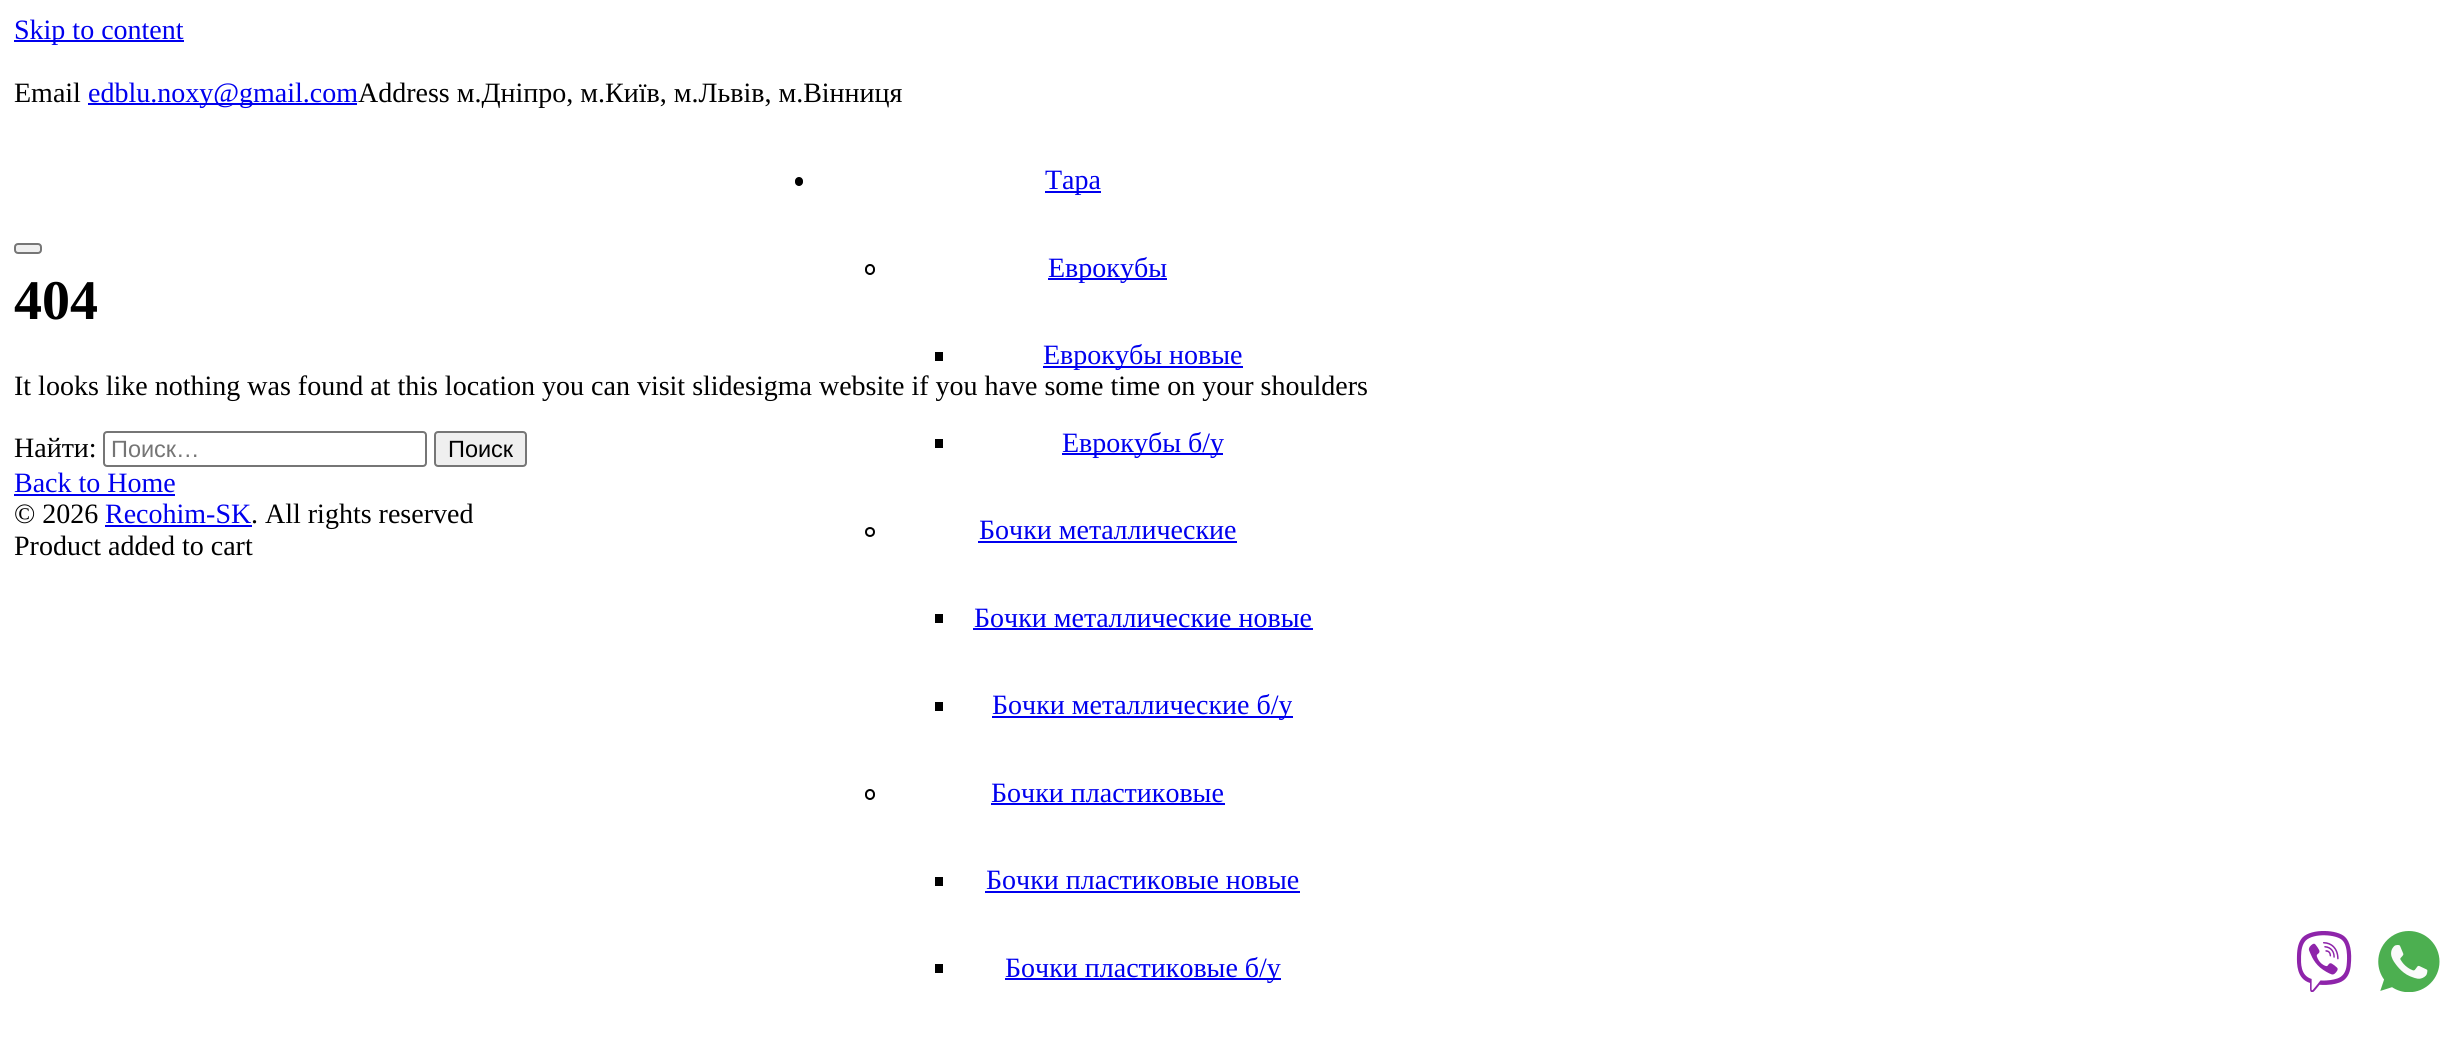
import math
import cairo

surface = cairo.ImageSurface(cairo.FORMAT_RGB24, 2457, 1051)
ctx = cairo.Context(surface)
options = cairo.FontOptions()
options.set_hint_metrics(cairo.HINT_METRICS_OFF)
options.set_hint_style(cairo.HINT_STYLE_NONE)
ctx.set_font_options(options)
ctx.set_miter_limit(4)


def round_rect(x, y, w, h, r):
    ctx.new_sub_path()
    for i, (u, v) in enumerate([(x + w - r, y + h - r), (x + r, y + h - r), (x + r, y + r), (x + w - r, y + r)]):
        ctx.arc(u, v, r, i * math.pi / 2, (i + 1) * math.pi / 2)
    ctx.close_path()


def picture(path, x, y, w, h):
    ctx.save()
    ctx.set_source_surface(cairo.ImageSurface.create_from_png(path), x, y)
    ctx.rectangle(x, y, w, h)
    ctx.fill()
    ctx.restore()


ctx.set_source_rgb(1, 1, 1)
ctx.paint()
ctx.set_source_rgb(0, 0, 0.933)
ctx.rectangle(14, 40, 170, 2)
ctx.fill()
ctx.select_font_face("Liberation Serif")
ctx.set_font_size(28)
ctx.move_to(14, 39)
ctx.show_text("Skip to content")
ctx.set_source_rgb(0, 0, 0)
ctx.move_to(14, 102)
ctx.show_text("Email")
ctx.set_source_rgb(0, 0, 0.933)
ctx.rectangle(88, 103, 269, 2)
ctx.fill()
ctx.move_to(88, 102)
ctx.show_text("edblu.noxy@gmail.com")
ctx.set_source_rgb(0, 0, 0)
ctx.move_to(358, 102)
ctx.show_text("Address м.Дніпро, м.Київ, м.Львів, м.Вінниця")
ctx.set_source_rgb(0.937, 0.937, 0.937)
round_rect(15, 244, 26, 9, 3)
ctx.fill_preserve()
ctx.set_source_rgb(0.463, 0.463, 0.463)
ctx.stroke()
ctx.set_source_rgb(0, 0, 0)
round_rect(795, 177, 8, 9, 4)
ctx.fill()
ctx.set_source_rgb(0, 0, 0.933)
ctx.rectangle(1045, 191, 56, 2)
ctx.fill()
ctx.move_to(1045, 189)
ctx.show_text("Тара")
round_rect(866, 265, 8, 9, 4)
ctx.set_source_rgb(0, 0, 0)
ctx.stroke()
ctx.set_source_rgb(0, 0, 0.933)
ctx.rectangle(1048, 278, 119, 2)
ctx.fill()
ctx.move_to(1048, 277)
ctx.show_text("Еврокубы")
ctx.set_source_rgb(0, 0, 0)
ctx.rectangle(935, 352, 8, 9)
ctx.fill()
ctx.set_source_rgb(0, 0, 0.933)
ctx.rectangle(1043, 366, 200, 2)
ctx.fill()
ctx.move_to(1043, 364)
ctx.show_text("Еврокубы новые")
ctx.set_source_rgb(0, 0, 0)
ctx.rectangle(935, 439, 8, 9)
ctx.fill()
ctx.set_source_rgb(0, 0, 0.933)
ctx.rectangle(1062, 453, 161, 2)
ctx.fill()
ctx.move_to(1062, 452)
ctx.show_text("Еврокубы б/у")
ctx.new_path()
ctx.arc(870, 532, 4, 0, 2 * math.pi)
ctx.set_source_rgb(0, 0, 0)
ctx.stroke()
ctx.set_source_rgb(0, 0, 0.933)
ctx.move_to(979, 539)
ctx.show_text("Бочки металлические")
ctx.rectangle(978, 541, 259, 2)
ctx.fill()
ctx.set_source_rgb(0, 0, 0)
ctx.rectangle(935, 614, 8, 9)
ctx.fill()
ctx.set_source_rgb(0, 0, 0.933)
ctx.move_to(974, 627)
ctx.show_text("Бочки металлические новые")
ctx.rectangle(973, 628, 340, 2)
ctx.fill()
ctx.set_source_rgb(0, 0, 0)
ctx.rectangle(935, 702, 8, 9)
ctx.fill()
ctx.set_source_rgb(0, 0, 0.933)
ctx.rectangle(992, 716, 301, 2)
ctx.fill()
ctx.move_to(992, 714)
ctx.show_text("Бочки металлические б/у")
round_rect(866, 790, 8, 9, 4)
ctx.set_source_rgb(0, 0, 0)
ctx.stroke()
ctx.set_source_rgb(0, 0, 0.933)
ctx.move_to(991, 802)
ctx.show_text("Бочки пластиковые")
ctx.rectangle(991, 803, 234, 2)
ctx.fill()
ctx.set_source_rgb(0, 0, 0)
ctx.rectangle(935, 877, 8, 9)
ctx.fill()
ctx.set_source_rgb(0, 0, 0.933)
ctx.move_to(986, 889)
ctx.show_text("Бочки пластиковые новые")
ctx.rectangle(985, 891, 315, 2)
ctx.fill()
ctx.set_source_rgb(0, 0, 0)
ctx.rectangle(935, 964, 8, 9)
ctx.fill()
ctx.set_source_rgb(0, 0, 0.933)
ctx.rectangle(1005, 978, 276, 2)
ctx.fill()
ctx.move_to(1005, 977)
ctx.show_text("Бочки пластиковые б/у")
ctx.select_font_face("Liberation Serif", cairo.FONT_SLANT_NORMAL, cairo.FONT_WEIGHT_BOLD)
ctx.set_font_size(56)
ctx.set_source_rgb(0, 0, 0)
ctx.move_to(14, 319)
ctx.show_text("404")
ctx.select_font_face("Liberation Serif")
ctx.set_font_size(28)
ctx.move_to(14, 395)
ctx.show_text("It looks like nothing was found at this location you can visit slidesigma website if you have some time on your shoulders")
ctx.move_to(14, 457)
ctx.show_text("Найти:")
round_rect(104, 432, 322, 34, 3)
ctx.set_source_rgb(0.463, 0.463, 0.463)
ctx.stroke()
ctx.select_font_face("Liberation Sans")
ctx.set_font_size(23.5)
ctx.set_source_rgb(0.459, 0.459, 0.459)
ctx.move_to(111, 457)
ctx.show_text("Поиск…")
ctx.set_source_rgb(0.937, 0.937, 0.937)
round_rect(435, 432, 91, 34, 3)
ctx.fill_preserve()
ctx.set_source_rgb(0.463, 0.463, 0.463)
ctx.stroke()
ctx.set_source_rgb(0, 0, 0)
ctx.move_to(448, 457)
ctx.show_text("Поиск")
ctx.select_font_face("Liberation Serif")
ctx.set_font_size(28)
ctx.set_source_rgb(0, 0, 0.933)
ctx.move_to(14, 492)
ctx.show_text("Back to Home")
ctx.rectangle(14, 494, 161, 2)
ctx.fill()
ctx.set_source_rgb(0, 0, 0)
ctx.move_to(14, 523)
ctx.show_text("© 2026")
ctx.set_source_rgb(0, 0, 0.933)
ctx.move_to(105, 523)
ctx.show_text("Recohim-SK")
ctx.rectangle(105, 525, 147, 2)
ctx.fill()
ctx.set_source_rgb(0, 0, 0)
ctx.move_to(251, 523)
ctx.show_text(". All rights reserved")
ctx.move_to(14, 555)
ctx.show_text("Product added to cart")
picture("img1.png", 2296, 931, 56, 61)
picture("img2.png", 2378, 931, 62, 61)
surface.write_to_png("page.png")
